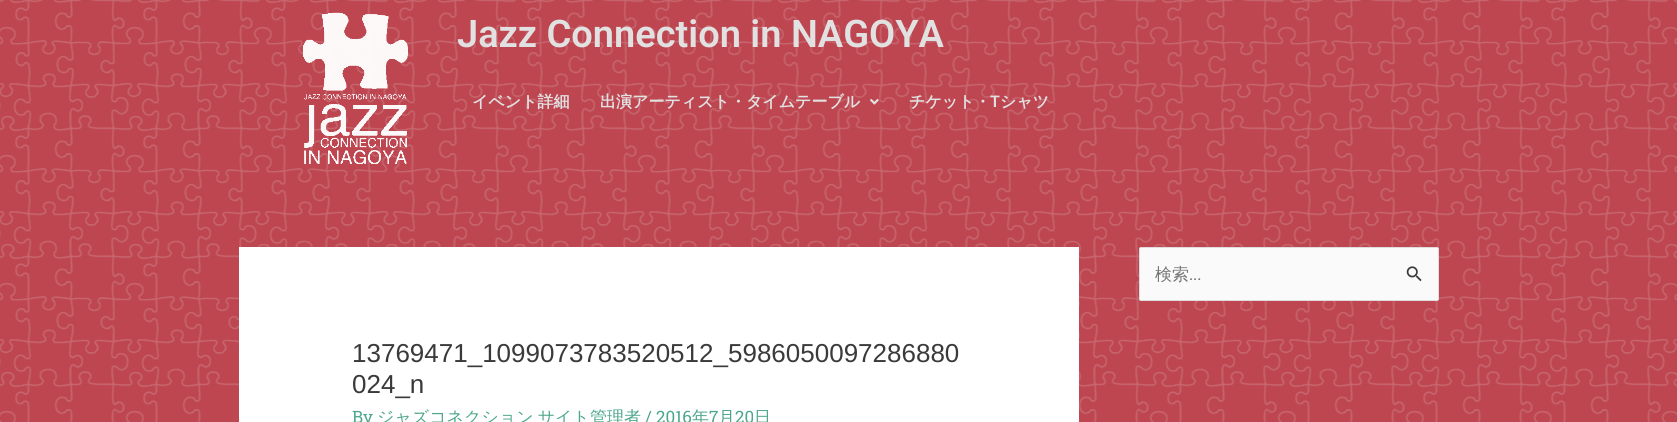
import math
import cairo

surface = cairo.ImageSurface(cairo.FORMAT_RGB24, 1677, 422)
ctx = cairo.Context(surface)
options = cairo.FontOptions()
options.set_hint_metrics(cairo.HINT_METRICS_OFF)
options.set_hint_style(cairo.HINT_STYLE_NONE)
ctx.set_font_options(options)
ctx.set_miter_limit(4)


def spaced_text(x, y, s, letter, word):
    ctx.move_to(x, y)
    for ch in s:
        ctx.show_text(ch)
        ctx.rel_move_to(letter + word * (ch == ' '), 0)


def round_rect(x, y, w, h, r):
    ctx.new_sub_path()
    for i, (u, v) in enumerate([(x + w - r, y + h - r), (x + r, y + h - r), (x + r, y + r), (x + w - r, y + r)]):
        ctx.arc(u, v, r, i * math.pi / 2, (i + 1) * math.pi / 2)
    ctx.close_path()


def picture(path, x, y, w, h):
    ctx.save()
    ctx.set_source_surface(cairo.ImageSurface.create_from_png(path), x, y)
    ctx.rectangle(x, y, w, h)
    ctx.fill()
    ctx.restore()


ctx.set_source_rgb(1, 1, 1)
ctx.paint()
picture("img1.png", 0, 0, 1677, 422)
picture("img2.png", 302, 12, 106, 152)
ctx.select_font_face("Roboto SemiBold")
ctx.set_font_size(38)
ctx.set_source_rgb(0.882, 0.882, 0.882)
ctx.move_to(457, 47)
ctx.show_text("Jazz Connection in NAGOYA")
ctx.select_font_face("WenQuanYi Zen Hei", cairo.FONT_SLANT_NORMAL, cairo.FONT_WEIGHT_BOLD)
ctx.set_font_size(16)
ctx.move_to(472, 107)
ctx.show_text("イベント詳細")
ctx.move_to(600, 107)
ctx.show_text("出演アーティスト・タイムテーブル")
picture("img3.png", 870, 99, 9, 6)
ctx.move_to(909, 107)
ctx.show_text("チケット・")
ctx.select_font_face("Roboto SemiBold")
ctx.move_to(990, 107)
ctx.show_text("T")
ctx.select_font_face("WenQuanYi Zen Hei", cairo.FONT_SLANT_NORMAL, cairo.FONT_WEIGHT_BOLD)
ctx.move_to(1000, 107)
ctx.show_text("シャツ")
ctx.set_source_rgb(0.98, 0.98, 0.98)
round_rect(1139.5, 247.5, 299, 53, 1.5)
ctx.fill_preserve()
ctx.set_source_rgb(0.867, 0.867, 0.867)
ctx.set_line_width(1)
ctx.stroke()
ctx.select_font_face("WenQuanYi Zen Hei Medium")
ctx.set_font_size(17)
ctx.set_source_rgb(0.459, 0.459, 0.459)
ctx.move_to(1155, 280)
ctx.show_text("検索")
ctx.select_font_face("Roboto Slab")
ctx.move_to(1189, 280)
ctx.show_text("...")
picture("img4.png", 1406, 266, 16, 16)
ctx.set_source_rgb(1, 1, 1)
ctx.rectangle(239, 247, 840, 175)
ctx.fill()
ctx.select_font_face("Liberation Sans")
ctx.set_font_size(26)
ctx.set_source_rgb(0.227, 0.227, 0.227)
ctx.move_to(352, 362)
ctx.show_text("13769471_1099073783520512_5986050097286880")
ctx.move_to(352, 393)
ctx.show_text("024_n")
ctx.select_font_face("Roboto Slab")
ctx.set_font_size(17)
ctx.set_source_rgb(0.298, 0.651, 0.553)
ctx.move_to(352, 423)
ctx.show_text("By")
ctx.select_font_face("WenQuanYi Zen Hei Medium")
spaced_text(377, 423, "ジャズコネクション サイト管理者", 0, -1)
ctx.select_font_face("Roboto Slab")
ctx.move_to(645, 423)
ctx.show_text("/ 2016")
ctx.select_font_face("WenQuanYi Zen Hei Medium")
ctx.move_to(692, 423)
ctx.show_text("年")
ctx.select_font_face("Roboto Slab")
ctx.move_to(709, 423)
ctx.show_text("7")
ctx.select_font_face("WenQuanYi Zen Hei Medium")
ctx.move_to(718, 423)
ctx.show_text("月")
ctx.select_font_face("Roboto Slab")
ctx.move_to(735, 423)
ctx.show_text("20")
ctx.select_font_face("WenQuanYi Zen Hei Medium")
ctx.move_to(754, 423)
ctx.show_text("日")
surface.write_to_png("page.png")
